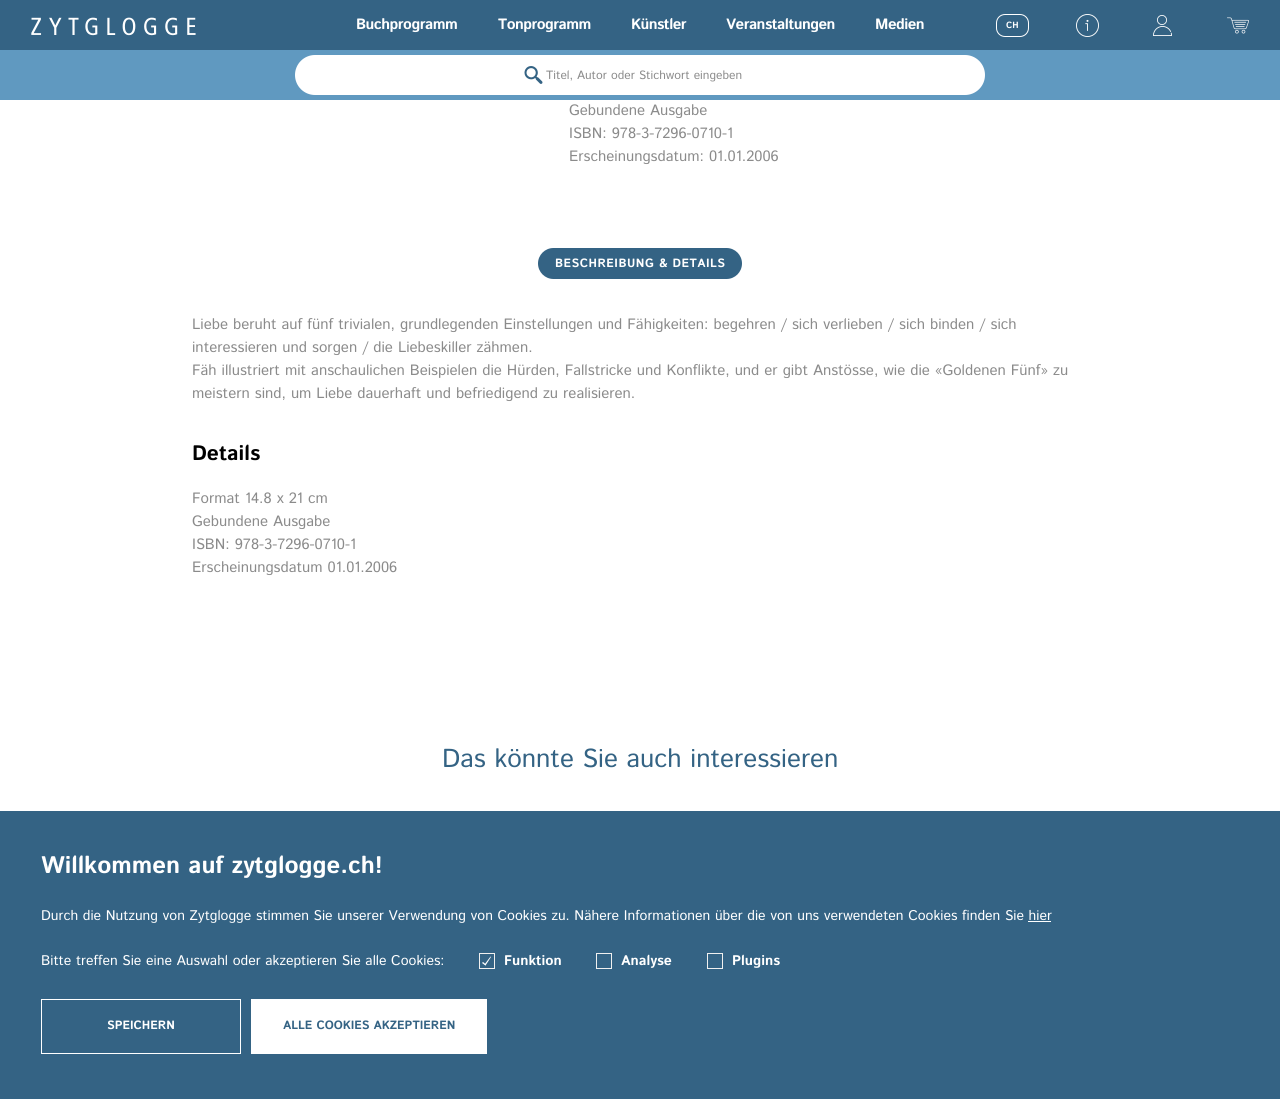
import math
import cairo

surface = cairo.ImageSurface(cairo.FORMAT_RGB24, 1280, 1099)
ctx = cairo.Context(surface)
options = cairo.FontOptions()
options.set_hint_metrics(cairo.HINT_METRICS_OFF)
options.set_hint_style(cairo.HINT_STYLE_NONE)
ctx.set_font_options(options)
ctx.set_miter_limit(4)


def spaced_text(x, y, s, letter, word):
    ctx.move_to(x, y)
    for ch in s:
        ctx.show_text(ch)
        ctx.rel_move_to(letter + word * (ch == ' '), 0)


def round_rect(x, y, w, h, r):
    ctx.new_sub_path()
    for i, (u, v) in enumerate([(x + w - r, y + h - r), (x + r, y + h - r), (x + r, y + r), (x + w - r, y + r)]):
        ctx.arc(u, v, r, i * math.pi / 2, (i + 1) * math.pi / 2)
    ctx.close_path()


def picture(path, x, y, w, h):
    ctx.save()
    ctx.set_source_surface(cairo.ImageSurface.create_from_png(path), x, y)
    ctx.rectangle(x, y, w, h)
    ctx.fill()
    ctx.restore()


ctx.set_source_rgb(1, 1, 1)
ctx.paint()
ctx.set_source_rgb(0.204, 0.388, 0.518)
ctx.rectangle(0, 0, 1280, 50)
ctx.fill()
picture("img1.png", 31, 17, 165, 19)
ctx.select_font_face("Istok Web", cairo.FONT_SLANT_NORMAL, cairo.FONT_WEIGHT_BOLD)
ctx.set_font_size(15)
ctx.set_source_rgb(1, 1, 1)
spaced_text(356, 29, "Buchprogramm", -0.5, 0)
spaced_text(498, 29, "Tonprogramm", -0.5, 0)
spaced_text(631, 29, "Künstler", -0.5, 0)
spaced_text(726, 29, "Veranstaltungen", -0.5, 0)
spaced_text(875, 29, "Medien", -0.5, 0)
round_rect(996.5, 14.5, 32, 22, 8.5)
ctx.set_line_width(1)
ctx.stroke()
ctx.set_font_size(9)
ctx.move_to(1006, 28)
ctx.show_text("CH")
picture("img2.png", 1076, 14, 23, 23)
picture("img3.png", 1153, 15, 19, 21)
picture("img4.png", 1227, 17, 22, 17)
ctx.set_source_rgb(0.376, 0.6, 0.753)
ctx.rectangle(0, 50, 1280, 50)
ctx.fill()
ctx.set_source_rgb(1, 1, 1)
round_rect(295, 55, 690, 40, 20)
ctx.fill()
picture("img5.png", 524, 66, 19, 18)
ctx.select_font_face("Istok Web")
ctx.set_font_size(12)
ctx.set_source_rgb(0.545, 0.545, 0.545)
ctx.move_to(546, 79)
ctx.show_text("Titel, Autor oder Stichwort eingeben")
ctx.set_font_size(15)
ctx.move_to(569, 115)
ctx.show_text("Gebundene Ausgabe")
ctx.move_to(569, 138)
ctx.show_text("ISBN: 978-3-7296-0710-1")
ctx.move_to(569, 161)
ctx.show_text("Erscheinungsdatum: 01.01.2006")
ctx.set_source_rgb(0.204, 0.388, 0.518)
round_rect(538, 248, 204, 31, 15.5)
ctx.fill()
ctx.select_font_face("Istok Web", cairo.FONT_SLANT_NORMAL, cairo.FONT_WEIGHT_BOLD)
ctx.set_font_size(12)
ctx.set_source_rgb(1, 1, 1)
spaced_text(555, 267, "BESCHREIBUNG & DETAILS", 0.5, 0)
ctx.select_font_face("Istok Web")
ctx.set_font_size(15)
ctx.set_source_rgb(0.545, 0.545, 0.545)
ctx.move_to(192, 329)
ctx.show_text("Liebe beruht auf fünf trivialen, grundlegenden Einstellungen und Fähigkeiten: begehren / sich verlieben / sich binden / sich")
ctx.move_to(192, 352)
ctx.show_text("interessieren und sorgen / die Liebeskiller zähmen.")
ctx.move_to(192, 375)
ctx.show_text("Fäh illustriert mit anschaulichen Beispielen die Hürden, Fallstricke und Konflikte, und er gibt Anstösse, wie die «Goldenen Fünf» zu")
ctx.move_to(192, 398)
ctx.show_text("meistern sind, um Liebe dauerhaft und befriedigend zu realisieren.")
ctx.select_font_face("Istok Web", cairo.FONT_SLANT_NORMAL, cairo.FONT_WEIGHT_BOLD)
ctx.set_font_size(21)
ctx.set_source_rgb(0, 0, 0)
ctx.move_to(192, 460)
ctx.show_text("Details")
ctx.select_font_face("Istok Web")
ctx.set_font_size(15)
ctx.set_source_rgb(0.545, 0.545, 0.545)
ctx.move_to(192, 503)
ctx.show_text("Format 14.8 x 21 cm")
ctx.move_to(192, 526)
ctx.show_text("Gebundene Ausgabe")
ctx.move_to(192, 549)
ctx.show_text("ISBN: 978-3-7296-0710-1")
ctx.move_to(192, 572)
ctx.show_text("Erscheinungsdatum 01.01.2006")
ctx.set_font_size(26)
ctx.set_source_rgb(0.204, 0.388, 0.518)
ctx.move_to(442, 767)
ctx.show_text("Das könnte Sie auch interessieren")
ctx.rectangle(0, 811, 1280, 288)
ctx.fill()
ctx.select_font_face("Istok Web", cairo.FONT_SLANT_NORMAL, cairo.FONT_WEIGHT_BOLD)
ctx.set_font_size(24)
ctx.set_source_rgb(1, 1, 1)
ctx.move_to(41, 873)
ctx.show_text("Willkommen auf zytglogge.ch!")
ctx.select_font_face("Istok Web")
ctx.set_font_size(14)
ctx.move_to(41, 920)
ctx.show_text("Durch die Nutzung von Zytglogge stimmen Sie unserer Verwendung von Cookies zu. Nähere Informationen über die von uns verwendeten Cookies finden Sie hier")
ctx.rectangle(1028, 921, 23, 1)
ctx.fill()
ctx.move_to(41, 965)
ctx.show_text("Bitte treffen Sie eine Auswahl oder akzeptieren Sie alle Cookies:")
ctx.rectangle(479.5, 953.5, 15, 15)
ctx.set_source_rgb(0.941, 0.941, 0.937)
ctx.stroke()
ctx.select_font_face("Istok Web", cairo.FONT_SLANT_NORMAL, cairo.FONT_WEIGHT_BOLD)
ctx.set_source_rgb(1, 1, 1)
ctx.move_to(504, 965)
ctx.show_text("Funktion")
ctx.new_path()
ctx.move_to(484.5, 964.5)
ctx.line_to(490.5, 956.5)
ctx.line_to(491, 957)
ctx.line_to(485.5, 965.5)
ctx.close_path()
ctx.fill()
ctx.new_path()
ctx.move_to(482, 963)
ctx.line_to(483, 962)
ctx.line_to(486, 964.5)
ctx.line_to(485.5, 965.5)
ctx.close_path()
ctx.fill()
ctx.rectangle(596.5, 953.5, 15, 15)
ctx.set_source_rgb(0.941, 0.941, 0.937)
ctx.stroke()
ctx.set_source_rgb(1, 1, 1)
ctx.move_to(621, 965)
ctx.show_text("Analyse")
ctx.rectangle(707.5, 953.5, 15, 15)
ctx.set_source_rgb(0.941, 0.941, 0.937)
ctx.stroke()
ctx.set_source_rgb(1, 1, 1)
ctx.move_to(732, 965)
ctx.show_text("Plugins")
ctx.rectangle(41.5, 999.5, 199, 54)
ctx.stroke()
ctx.set_font_size(12)
ctx.move_to(107, 1029)
ctx.show_text("SPEICHERN")
ctx.rectangle(251, 999, 236, 55)
ctx.fill()
ctx.set_source_rgb(0.204, 0.388, 0.518)
ctx.move_to(283, 1029)
ctx.show_text("ALLE COOKIES AKZEPTIEREN")
surface.write_to_png("page.png")
